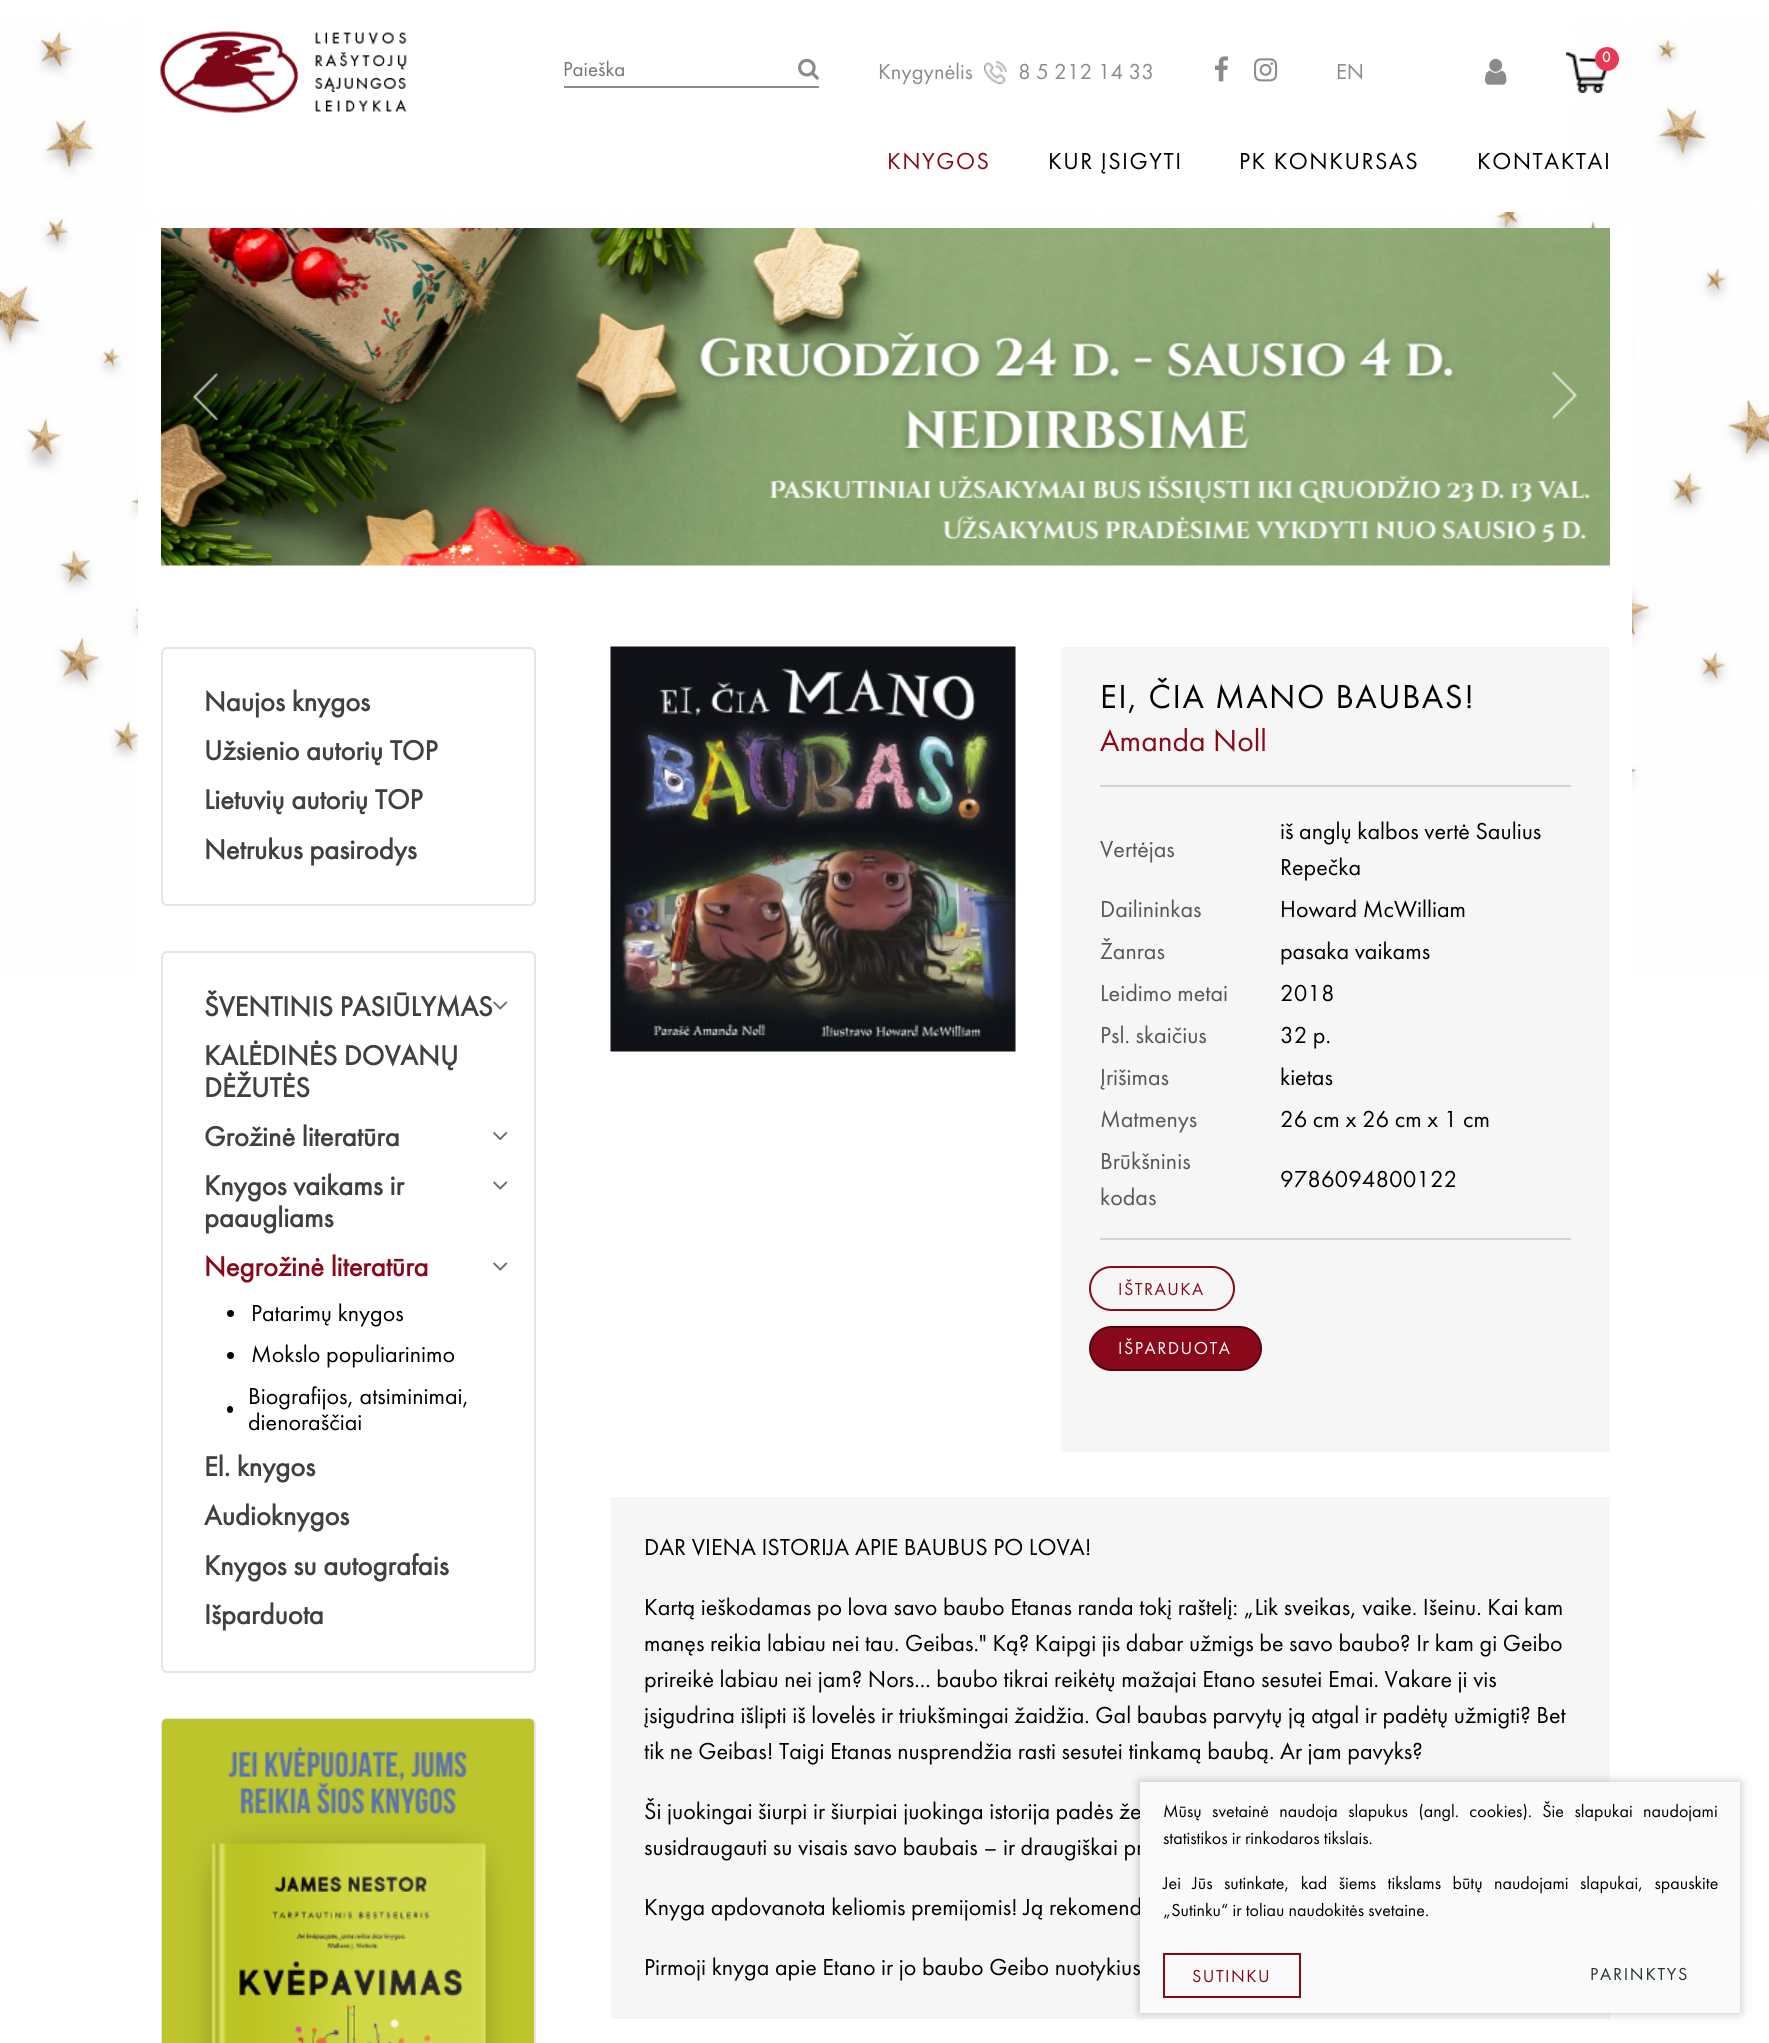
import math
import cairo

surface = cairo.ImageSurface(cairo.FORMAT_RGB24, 1769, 2043)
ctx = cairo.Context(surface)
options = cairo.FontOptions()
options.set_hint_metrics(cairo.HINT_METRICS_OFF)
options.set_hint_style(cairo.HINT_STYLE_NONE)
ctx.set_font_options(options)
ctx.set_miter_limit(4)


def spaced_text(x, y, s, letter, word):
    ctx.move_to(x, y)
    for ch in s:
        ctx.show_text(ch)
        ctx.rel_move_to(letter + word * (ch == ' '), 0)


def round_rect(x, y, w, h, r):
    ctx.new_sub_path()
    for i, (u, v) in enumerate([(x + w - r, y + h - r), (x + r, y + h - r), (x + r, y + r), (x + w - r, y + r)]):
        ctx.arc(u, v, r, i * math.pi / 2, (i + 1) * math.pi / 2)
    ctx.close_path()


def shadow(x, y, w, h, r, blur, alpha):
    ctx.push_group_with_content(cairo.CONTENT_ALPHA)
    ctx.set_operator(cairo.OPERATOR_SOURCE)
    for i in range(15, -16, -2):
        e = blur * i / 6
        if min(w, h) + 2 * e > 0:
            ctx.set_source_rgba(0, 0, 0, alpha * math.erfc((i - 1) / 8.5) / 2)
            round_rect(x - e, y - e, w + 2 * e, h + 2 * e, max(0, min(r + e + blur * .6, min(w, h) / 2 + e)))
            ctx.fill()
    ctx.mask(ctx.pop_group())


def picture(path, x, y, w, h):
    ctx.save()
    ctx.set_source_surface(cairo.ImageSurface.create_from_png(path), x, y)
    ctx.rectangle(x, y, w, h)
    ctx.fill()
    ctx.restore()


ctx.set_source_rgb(1, 1, 1)
ctx.paint()
picture("img1.png", 0, 20, 1769, 956)
ctx.set_source_rgb(1, 1, 1)
ctx.rectangle(144, 20, 1428, 192)
ctx.fill()
picture("img2.png", 160, 31, 247, 82)
ctx.set_source_rgb(0.545, 0.545, 0.545)
ctx.rectangle(564, 86, 255, 2)
ctx.fill()
ctx.select_font_face("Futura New")
ctx.set_font_size(21)
ctx.set_source_rgb(0.459, 0.459, 0.459)
ctx.move_to(563, 76)
ctx.show_text("Paieška")
picture("img3.png", 798, 58, 21, 22)
ctx.set_font_size(22.5)
ctx.set_source_rgb(0.545, 0.545, 0.545)
ctx.move_to(878, 79)
ctx.show_text("Knygynėlis")
picture("img4.png", 984, 61, 23, 23)
ctx.move_to(1018, 79)
ctx.show_text("8 5 212 14 33")
picture("img5.png", 1214, 56, 14, 26)
picture("img6.png", 1254, 58, 24, 24)
ctx.move_to(1336, 79)
ctx.show_text("EN")
picture("img7.png", 1485, 58, 22, 27)
picture("img8.png", 1566, 52, 42, 41)
ctx.set_source_rgb(0.925, 0.22, 0.314)
ctx.arc(1607, 59, 12, 0, 2 * math.pi)
ctx.fill()
ctx.select_font_face("Futura New", cairo.FONT_SLANT_NORMAL, cairo.FONT_WEIGHT_BOLD)
ctx.set_font_size(15)
ctx.set_source_rgb(1, 1, 1)
ctx.move_to(1602, 62)
ctx.show_text("0")
ctx.select_font_face("Futura New")
ctx.set_font_size(24)
ctx.set_source_rgb(0.537, 0.039, 0.106)
spaced_text(887, 169, "KNYGOS", 1.5, 0)
ctx.set_source_rgb(0, 0, 0)
spaced_text(1048, 169, "KUR ĮSIGYTI", 1.5, 0)
spaced_text(1239, 169, "PK KONKURSAS", 1.5, 0)
spaced_text(1477, 169, "KONTAKTAI", 1.5, 0)
ctx.set_source_rgb(1, 1, 1)
ctx.rectangle(138, 228, 1494, 748)
ctx.fill()
picture("img9.png", 161, 228, 1449, 338)
picture("img10.png", 193, 373, 25, 47)
picture("img11.png", 1552, 372, 25, 47)
round_rect(162, 648, 373, 257, 5)
ctx.set_source_rgb(0.906, 0.902, 0.902)
ctx.stroke()
ctx.select_font_face("Futura New", cairo.FONT_SLANT_NORMAL, cairo.FONT_WEIGHT_BOLD)
ctx.set_font_size(28.5)
ctx.set_source_rgb(0.251, 0.251, 0.251)
ctx.move_to(204, 711)
ctx.show_text("Naujos knygos")
ctx.move_to(204, 760)
ctx.show_text("Užsienio autorių TOP")
ctx.move_to(204, 809)
ctx.show_text("Lietuvių autorių TOP")
ctx.move_to(204, 859)
ctx.show_text("Netrukus pasirodys")
round_rect(162, 952, 373, 720, 5)
ctx.set_source_rgb(0.906, 0.902, 0.902)
ctx.stroke()
ctx.set_source_rgb(0.251, 0.251, 0.251)
ctx.move_to(204, 1016)
ctx.show_text("ŠVENTINIS PASIŪLYMAS")
picture("img12.png", 493, 1001, 15, 9)
ctx.move_to(204, 1065)
ctx.show_text("KALĖDINĖS DOVANŲ")
ctx.move_to(204, 1097)
ctx.show_text("DĖŽUTĖS")
ctx.move_to(204, 1146)
ctx.show_text("Grožinė literatūra")
picture("img13.png", 493, 1132, 15, 9)
ctx.move_to(204, 1195)
ctx.show_text("Knygos vaikams ir")
picture("img12.png", 493, 1181, 15, 9)
ctx.move_to(204, 1227)
ctx.show_text("paaugliams")
ctx.set_source_rgb(0.537, 0.039, 0.106)
ctx.move_to(204, 1276)
ctx.show_text("Negrožinė literatūra")
picture("img12.png", 493, 1262, 15, 9)
ctx.set_source_rgb(0, 0, 0)
ctx.arc(230.5, 1313.5, 3.5, 0, 2 * math.pi)
ctx.fill()
ctx.select_font_face("Futura New")
ctx.set_font_size(24)
ctx.move_to(251, 1321)
ctx.show_text("Patarimų knygos")
ctx.new_path()
ctx.arc(230.5, 1355.5, 3.5, 0, 2 * math.pi)
ctx.fill()
ctx.move_to(251, 1362)
ctx.show_text("Mokslo populiarinimo")
round_rect(227, 1406, 6, 7, 3)
ctx.fill()
ctx.move_to(248, 1404)
ctx.show_text("Biografijos, atsiminimai,")
ctx.move_to(248, 1430)
ctx.show_text("dienoraščiai")
ctx.select_font_face("Futura New", cairo.FONT_SLANT_NORMAL, cairo.FONT_WEIGHT_BOLD)
ctx.set_font_size(28.5)
ctx.set_source_rgb(0.251, 0.251, 0.251)
ctx.move_to(204, 1476)
ctx.show_text("El. knygos")
ctx.move_to(204, 1525)
ctx.show_text("Audioknygos")
ctx.move_to(204, 1575)
ctx.show_text("Knygos su autografais")
ctx.move_to(204, 1624)
ctx.show_text("Išparduota")
round_rect(162, 1719, 373, 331, 5)
ctx.set_source_rgb(0.906, 0.902, 0.902)
ctx.stroke()
picture("img14.png", 162, 1719, 372, 324)
picture("img15.png", 610, 646, 406, 406)
ctx.set_source_rgb(0.961, 0.961, 0.961)
ctx.rectangle(1061, 647, 549, 805)
ctx.fill()
ctx.select_font_face("Futura New")
ctx.set_font_size(34.5)
ctx.set_source_rgb(0, 0, 0)
spaced_text(1100, 708, "EI, ČIA MANO BAUBAS!", 1.5, 0)
ctx.set_font_size(31.5)
ctx.set_source_rgb(0.537, 0.039, 0.106)
ctx.move_to(1100, 751)
ctx.show_text("Amanda Noll")
ctx.set_source_rgb(0.831, 0.831, 0.831)
ctx.rectangle(1100, 785, 471, 2)
ctx.fill()
ctx.set_font_size(24)
ctx.set_source_rgb(0.341, 0.341, 0.341)
ctx.move_to(1100, 857)
ctx.show_text("Vertėjas")
ctx.set_source_rgb(0, 0, 0)
ctx.move_to(1280, 839)
ctx.show_text("iš anglų kalbos vertė Saulius")
ctx.move_to(1280, 875)
ctx.show_text("Repečka")
ctx.set_source_rgb(0.341, 0.341, 0.341)
ctx.move_to(1100, 917)
ctx.show_text("Dailininkas")
ctx.set_source_rgb(0, 0, 0)
ctx.move_to(1280, 917)
ctx.show_text("Howard McWilliam")
ctx.set_source_rgb(0.341, 0.341, 0.341)
ctx.move_to(1100, 959)
ctx.show_text("Žanras")
ctx.set_source_rgb(0, 0, 0)
ctx.move_to(1280, 959)
ctx.show_text("pasaka vaikams")
ctx.set_source_rgb(0.341, 0.341, 0.341)
ctx.move_to(1100, 1001)
ctx.show_text("Leidimo metai")
ctx.set_source_rgb(0, 0, 0)
ctx.move_to(1280, 1001)
ctx.show_text("2018")
ctx.set_source_rgb(0.341, 0.341, 0.341)
ctx.move_to(1100, 1043)
ctx.show_text("Psl. skaičius")
ctx.set_source_rgb(0, 0, 0)
ctx.move_to(1280, 1043)
ctx.show_text("32 p.")
ctx.set_source_rgb(0.341, 0.341, 0.341)
ctx.move_to(1100, 1085)
ctx.show_text("Įrišimas")
ctx.set_source_rgb(0, 0, 0)
ctx.move_to(1280, 1085)
ctx.show_text("kietas")
ctx.set_source_rgb(0.341, 0.341, 0.341)
ctx.move_to(1100, 1127)
ctx.show_text("Matmenys")
ctx.set_source_rgb(0, 0, 0)
ctx.move_to(1280, 1127)
ctx.show_text("26 cm x 26 cm x 1 cm")
ctx.set_source_rgb(0.341, 0.341, 0.341)
ctx.move_to(1100, 1169)
ctx.show_text("Brūkšninis")
ctx.move_to(1100, 1205)
ctx.show_text("kodas")
ctx.set_source_rgb(0, 0, 0)
ctx.move_to(1280, 1187)
ctx.show_text("9786094800122")
ctx.set_source_rgb(0.831, 0.831, 0.831)
ctx.rectangle(1100, 1238, 471, 2)
ctx.fill()
round_rect(1090, 1267, 144, 43, 21.5)
ctx.set_source_rgb(0.537, 0.039, 0.106)
ctx.stroke()
ctx.set_font_size(18)
spaced_text(1118, 1295, "IŠTRAUKA", 1.5, 0)
round_rect(1090, 1327, 171, 43, 21.5)
ctx.fill_preserve()
ctx.set_source_rgb(0.345, 0, 0.047)
ctx.stroke()
ctx.set_source_rgb(1, 1, 1)
spaced_text(1118, 1354, "IŠPARDUOTA", 1.5, 0)
ctx.set_source_rgb(0.961, 0.961, 0.961)
ctx.rectangle(611, 1497, 999, 522)
ctx.fill()
ctx.set_font_size(24)
ctx.set_source_rgb(0, 0, 0)
ctx.move_to(644, 1555)
ctx.show_text("DAR VIENA ISTORIJA APIE BAUBUS PO LOVA!")
ctx.move_to(644, 1615)
ctx.show_text("Kartą ieškodamas po lova savo baubo Etanas randa tokį raštelį: „Lik sveikas, vaike. Išeinu. Kai kam")
ctx.move_to(644, 1651)
ctx.show_text("manęs reikia labiau nei tau. Geibas.\" Ką? Kaipgi jis dabar užmigs be savo baubo? Ir kam gi Geibo")
ctx.move_to(644, 1687)
ctx.show_text("prireikė labiau nei jam? Nors... baubo tikrai reikėtų mažajai Etano sesutei Emai. Vakare ji vis")
ctx.move_to(644, 1723)
ctx.show_text("įsigudrina išlipti iš lovelės ir triukšmingai žaidžia. Gal baubas parvytų ją atgal ir padėtų užmigti? Bet")
ctx.move_to(644, 1759)
ctx.show_text("tik ne Geibas! Taigi Etanas nusprendžia rasti sesutei tinkamą baubą. Ar jam pavyks?")
ctx.move_to(644, 1819)
ctx.show_text("Ši juokingai šiurpi ir šiurpiai juokinga istorija padės že")
ctx.move_to(644, 1855)
ctx.show_text("susidraugauti su visais savo baubais – ir draugiškai pr")
ctx.move_to(644, 1915)
ctx.show_text("Knyga apdovanota keliomis premijomis! Ją rekomend")
ctx.move_to(644, 1975)
ctx.show_text("Pirmoji knyga apie Etano ir jo baubo Geibo nuotykius")
ctx.set_source_rgb(0, 0, 0)
shadow(1140, 1782, 600, 231, 0, 5, 0.25)
ctx.set_source_rgb(0.98, 0.98, 0.98)
ctx.rectangle(1140, 1782, 600, 231)
ctx.fill()
ctx.set_font_size(18)
ctx.set_source_rgb(0, 0, 0)
spaced_text(1163, 1817, "Mūsų svetainė naudoja slapukus (angl. cookies). Šie slapukai naudojami", 0, 6.25)
ctx.move_to(1163, 1844)
ctx.show_text("statistikos ir rinkodaros tikslais.")
spaced_text(1163, 1889, "Jei Jūs sutinkate, kad šiems tikslams būtų naudojami slapukai, spauskite", 0, 7.25)
ctx.move_to(1163, 1916)
ctx.show_text("„Sutinku“ ir toliau naudokitės svetaine.")
ctx.rectangle(1164, 1954, 136, 43)
ctx.set_source_rgb(0.537, 0.039, 0.106)
ctx.stroke()
spaced_text(1192, 1982, "SUTINKU", 1.5, 0)
ctx.set_source_rgb(0.149, 0.196, 0.22)
spaced_text(1590, 1980, "PARINKTYS", 1.75, 0)
surface.write_to_png("page.png")
